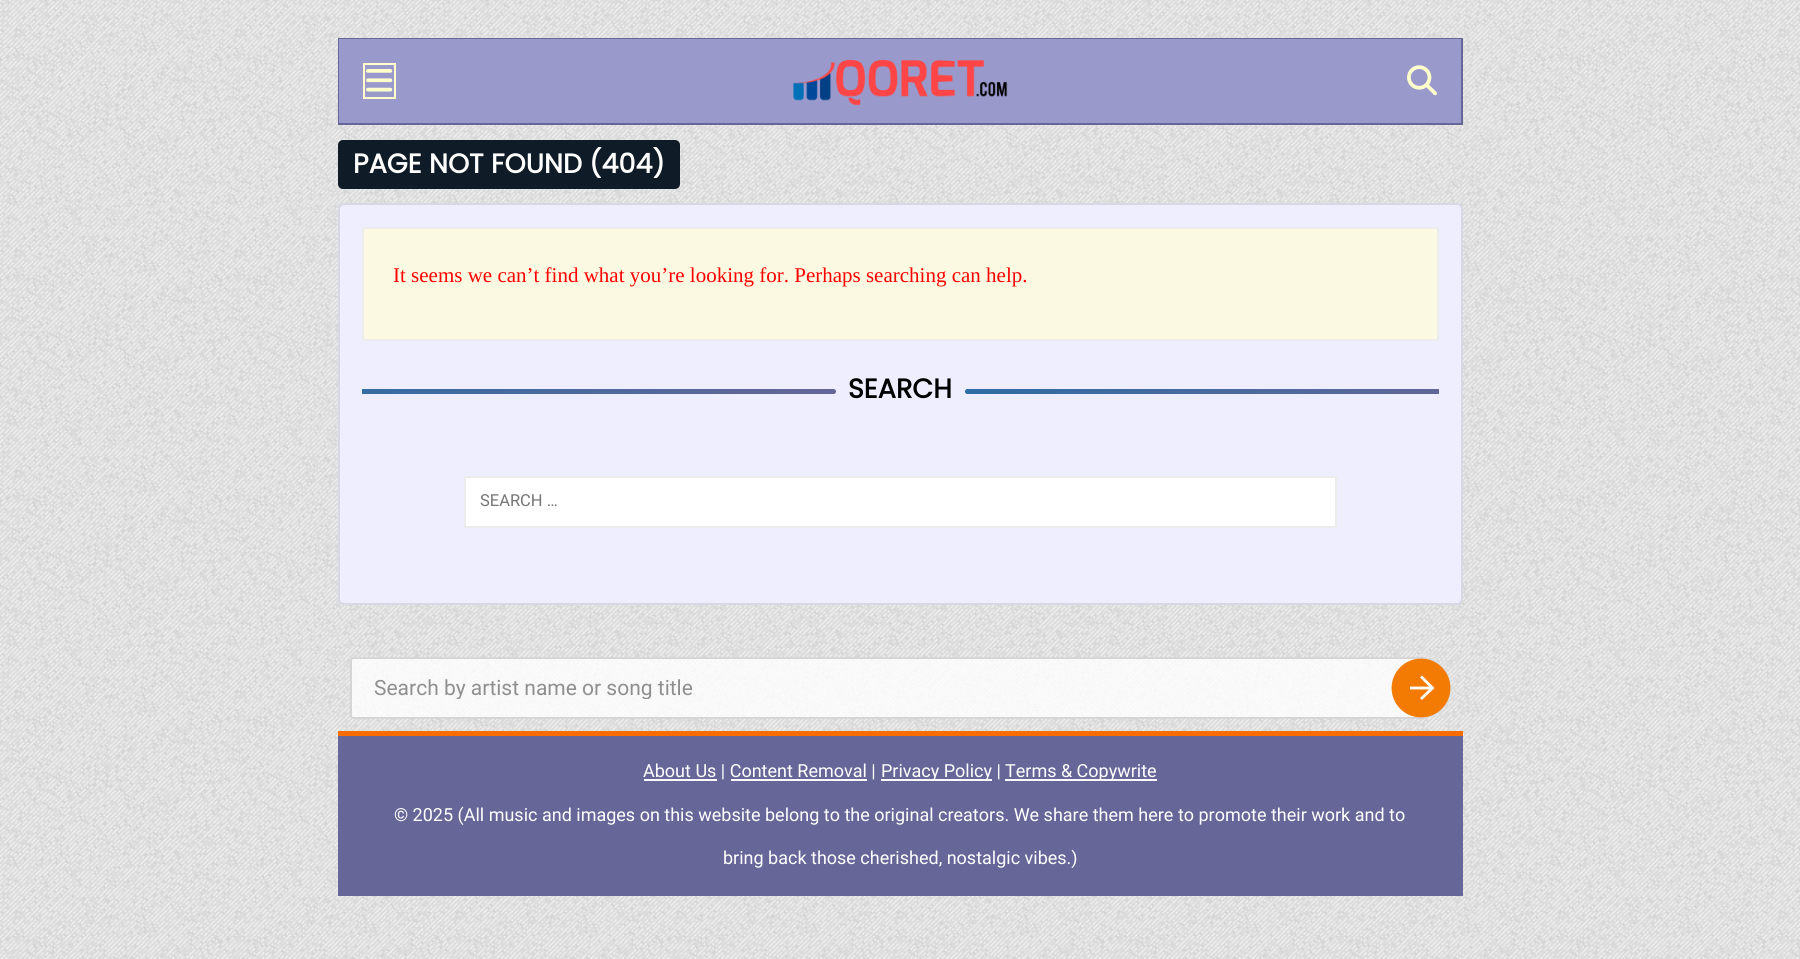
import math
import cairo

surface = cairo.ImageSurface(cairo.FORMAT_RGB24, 1800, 959)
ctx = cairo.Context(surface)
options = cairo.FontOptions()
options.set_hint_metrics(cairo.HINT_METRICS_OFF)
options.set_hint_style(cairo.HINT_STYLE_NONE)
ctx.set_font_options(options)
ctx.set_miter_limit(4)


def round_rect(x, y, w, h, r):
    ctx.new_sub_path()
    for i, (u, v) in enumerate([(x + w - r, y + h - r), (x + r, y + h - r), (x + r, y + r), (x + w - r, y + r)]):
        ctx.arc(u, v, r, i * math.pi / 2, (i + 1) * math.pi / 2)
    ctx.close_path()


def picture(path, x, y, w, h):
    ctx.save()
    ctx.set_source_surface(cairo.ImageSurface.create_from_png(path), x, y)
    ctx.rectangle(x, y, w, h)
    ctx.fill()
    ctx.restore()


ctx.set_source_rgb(1, 1, 1)
ctx.paint()
picture("img1.png", 0, 0, 1800, 959)
ctx.rectangle(339, 39, 1123, 85)
ctx.set_source_rgb(0.4, 0.4, 0.6)
ctx.stroke()
ctx.set_source_rgb(0.6, 0.6, 0.8)
ctx.rectangle(339, 39, 1122, 84)
ctx.fill()
ctx.rectangle(364, 64, 31, 34)
ctx.set_source_rgb(1, 1, 0.8)
ctx.stroke()
picture("img2.png", 366, 69, 27, 23)
picture("img3.png", 793, 59, 215, 47)
picture("img4.png", 1407, 65, 30, 31)
ctx.set_source_rgb(0.059, 0.106, 0.149)
round_rect(338, 140, 342, 49, 5)
ctx.fill()
ctx.select_font_face("Poppins", cairo.FONT_SLANT_NORMAL, cairo.FONT_WEIGHT_BOLD)
ctx.set_font_size(27)
ctx.set_source_rgb(1, 1, 1)
ctx.move_to(353, 173)
ctx.show_text("PAGE NOT FOUND (404)")
ctx.set_source_rgb(0.933, 0.933, 1)
round_rect(338, 203, 1125, 402, 6)
ctx.fill()
round_rect(339, 204, 1123, 400, 5)
ctx.set_source_rgba(0, 0, 0, 0.1)
ctx.stroke()
ctx.set_source_rgb(0.988, 0.973, 0.89)
ctx.rectangle(363, 228, 1075, 112)
ctx.fill_preserve()
ctx.set_source_rgb(0.922, 0.922, 0.922)
ctx.stroke()
ctx.select_font_face("Liberation Serif")
ctx.set_font_size(21)
ctx.set_source_rgb(1, 0, 0)
ctx.move_to(393, 282)
ctx.show_text("It seems we can’t find what you’re looking for. Perhaps searching can help.")
gradient = cairo.LinearGradient(836, 391, 297, 391)
gradient.add_color_stop_rgba(0, 0.4, 0.4, 0.6, 1)
gradient.add_color_stop_rgba(1, 0.18, 0.427, 0.643, 1)
ctx.set_source(gradient)
ctx.new_path()
ctx.move_to(362, 389)
ctx.line_to(833.5, 389)
ctx.curve_to(835, 389, 836, 390, 836, 391.5)
ctx.curve_to(836, 393, 835, 394, 833.5, 394)
ctx.line_to(362, 394)
ctx.close_path()
ctx.fill()
ctx.select_font_face("Poppins", cairo.FONT_SLANT_NORMAL, cairo.FONT_WEIGHT_BOLD)
ctx.set_font_size(27)
ctx.set_source_rgb(0, 0, 0)
ctx.move_to(848, 398)
ctx.show_text("SEARCH")
gradient = cairo.LinearGradient(1503, 391, 965, 391)
gradient.add_color_stop_rgba(0, 0.4, 0.4, 0.6, 1)
gradient.add_color_stop_rgba(1, 0.18, 0.427, 0.643, 1)
ctx.set_source(gradient)
ctx.new_path()
ctx.move_to(967.5, 389)
ctx.line_to(1439, 389)
ctx.line_to(1439, 394)
ctx.line_to(967.5, 394)
ctx.curve_to(966, 394, 965, 393, 965, 391.5)
ctx.curve_to(965, 390, 966, 389, 967.5, 389)
ctx.close_path()
ctx.fill()
ctx.set_source_rgb(1, 1, 1)
ctx.rectangle(465, 477, 871, 50)
ctx.fill_preserve()
ctx.set_source_rgb(0.922, 0.922, 0.922)
ctx.stroke()
ctx.select_font_face("Roboto")
ctx.set_font_size(16.5)
ctx.set_source_rgb(0.459, 0.459, 0.459)
ctx.move_to(480, 506)
ctx.show_text("SEARCH …")
ctx.set_source_rgba(1, 1, 1, 0.8)
ctx.new_path()
ctx.move_to(353, 657)
ctx.line_to(1420, 657)
ctx.curve_to(1437, 657, 1451, 671, 1451, 688)
ctx.curve_to(1451, 705, 1437, 719, 1420, 719)
ctx.line_to(353, 719)
ctx.curve_to(351.5, 719, 350, 717.5, 350, 716)
ctx.line_to(350, 660)
ctx.curve_to(350, 658.5, 351.5, 657, 353, 657)
ctx.close_path()
ctx.fill()
ctx.new_path()
ctx.move_to(353, 658)
ctx.line_to(1420, 658)
ctx.curve_to(1436.5, 658, 1450, 671.5, 1450, 688)
ctx.curve_to(1450, 704.5, 1436.5, 718, 1420, 718)
ctx.line_to(353, 718)
ctx.curve_to(352, 718, 351, 717, 351, 716)
ctx.line_to(351, 660)
ctx.curve_to(351, 659, 352, 658, 353, 658)
ctx.close_path()
ctx.set_source_rgba(0.8, 0.8, 0.8, 0.8)
ctx.stroke()
ctx.save()
ctx.rectangle(374, 675, 1015, 24)
ctx.clip()
ctx.set_font_size(21)
ctx.set_source_rgb(0.561, 0.561, 0.561)
ctx.move_to(374, 695)
ctx.show_text("Search by artist name or song title")
ctx.restore()
ctx.set_source_rgb(0.953, 0.482, 0.016)
ctx.new_path()
ctx.arc(1421, 688, 28, 0, 2 * math.pi)
ctx.fill_preserve()
ctx.set_line_width(2.8)
ctx.stroke()
ctx.new_path()
ctx.move_to(1421, 699)
ctx.line_to(1432.5, 688)
ctx.line_to(1421, 676.5)
ctx.move_to(1410, 688)
ctx.line_to(1432.5, 688)
ctx.set_source_rgb(1, 1, 1)
ctx.stroke()
ctx.set_source_rgb(0.4, 0.4, 0.6)
ctx.rectangle(338, 736, 1125, 160)
ctx.fill()
ctx.set_source_rgb(0.976, 0.427, 0)
ctx.rectangle(338, 731, 1125, 5)
ctx.fill()
ctx.set_source_rgb(0.98, 0.98, 0.98)
ctx.rectangle(644, 779, 73, 2)
ctx.fill()
ctx.set_font_size(18)
ctx.set_source_rgb(1, 1, 1)
ctx.move_to(643, 777)
ctx.show_text("About Us | Content Removal |")
ctx.set_source_rgb(0.98, 0.98, 0.98)
ctx.rectangle(881, 779, 111, 2)
ctx.fill()
ctx.set_source_rgb(1, 1, 1)
ctx.move_to(881, 777)
ctx.show_text("Privacy Policy |")
ctx.set_source_rgb(0.98, 0.98, 0.98)
ctx.rectangle(1005, 779, 152, 2)
ctx.fill()
ctx.set_source_rgb(1, 1, 1)
ctx.move_to(1005, 777)
ctx.show_text("Terms & Copywrite")
ctx.set_source_rgb(0.98, 0.98, 0.98)
ctx.rectangle(731, 779, 136, 2)
ctx.fill()
ctx.set_source_rgb(1, 1, 1)
ctx.move_to(394, 821)
ctx.show_text("© 2025 (All music and images on this website belong to the original creators. We share them here to promote their work and to")
ctx.move_to(723, 864)
ctx.show_text("bring back those cherished, nostalgic vibes.)")
surface.write_to_png("page.png")
